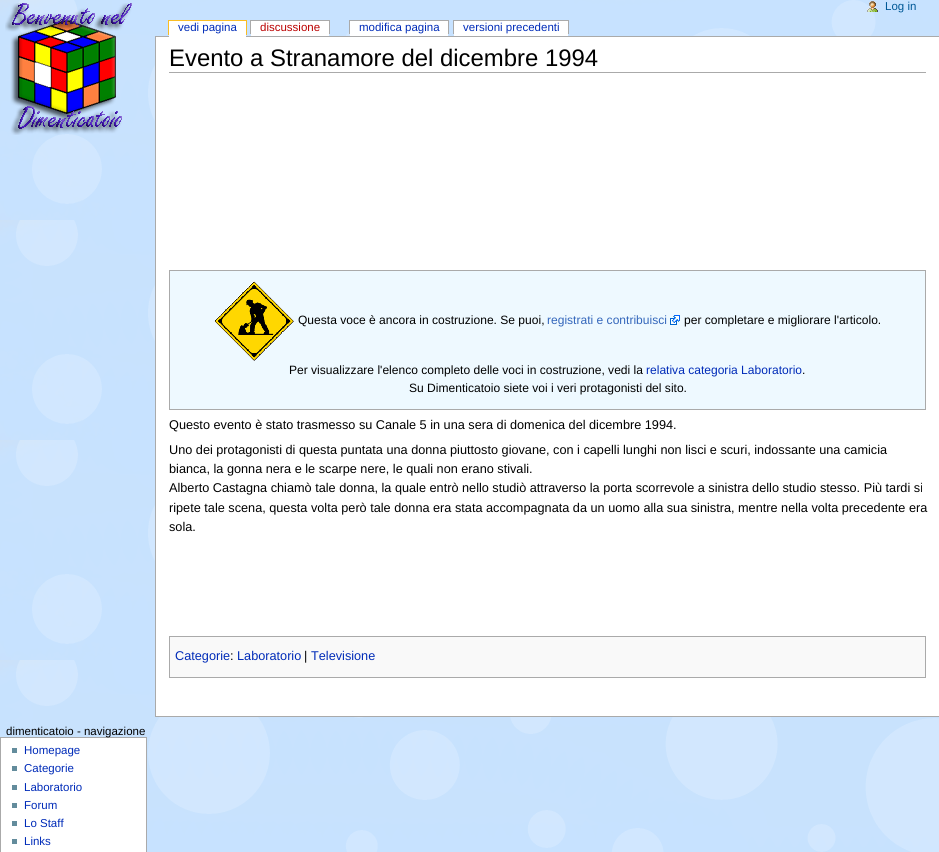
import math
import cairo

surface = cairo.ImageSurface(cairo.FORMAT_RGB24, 939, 852)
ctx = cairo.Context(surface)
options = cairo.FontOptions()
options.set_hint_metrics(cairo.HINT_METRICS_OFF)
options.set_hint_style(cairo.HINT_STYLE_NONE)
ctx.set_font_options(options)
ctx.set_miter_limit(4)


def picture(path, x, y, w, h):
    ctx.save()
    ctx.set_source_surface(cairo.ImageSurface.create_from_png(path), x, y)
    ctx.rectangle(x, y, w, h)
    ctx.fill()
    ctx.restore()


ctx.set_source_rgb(1, 1, 1)
ctx.paint()
picture("img1.png", 0, 0, 939, 852)
picture("img2.png", 5, 3, 127, 132)
ctx.set_source_rgb(0.667, 0.667, 0.667)
ctx.rectangle(155, 36, 784, 1)
ctx.fill()
ctx.set_source_rgb(1, 1, 1)
ctx.rectangle(169, 21, 77, 16)
ctx.fill()
ctx.select_font_face("Liberation Sans")
ctx.set_font_size(11.5)
ctx.set_source_rgb(0, 0.169, 0.722)
ctx.move_to(178, 31)
ctx.show_text("vedi pagina")
ctx.set_source_rgb(0.98, 0.741, 0.137)
ctx.rectangle(168, 20, 79, 1)
ctx.fill()
ctx.rectangle(246, 20, 1, 15)
ctx.fill()
ctx.rectangle(168, 20, 1, 15)
ctx.fill()
ctx.set_source_rgb(1, 1, 1)
ctx.rectangle(251, 21, 78, 15)
ctx.fill()
ctx.set_source_rgb(0.729, 0, 0)
ctx.move_to(260, 31)
ctx.show_text("discussione")
ctx.set_source_rgb(0.667, 0.667, 0.667)
ctx.rectangle(250, 20, 80, 1)
ctx.fill()
ctx.rectangle(329, 20, 1, 14)
ctx.fill()
ctx.rectangle(250, 20, 1, 14)
ctx.fill()
ctx.set_source_rgb(1, 1, 1)
ctx.rectangle(350, 21, 98, 15)
ctx.fill()
ctx.set_source_rgb(0, 0.169, 0.722)
ctx.move_to(359, 31)
ctx.show_text("modifica pagina")
ctx.set_source_rgb(0.667, 0.667, 0.667)
ctx.rectangle(349, 20, 100, 1)
ctx.fill()
ctx.rectangle(448, 20, 1, 14)
ctx.fill()
ctx.rectangle(349, 20, 1, 14)
ctx.fill()
ctx.set_source_rgb(1, 1, 1)
ctx.rectangle(454, 21, 114, 15)
ctx.fill()
ctx.set_source_rgb(0, 0.169, 0.722)
ctx.move_to(463, 31)
ctx.show_text("versioni precedenti")
ctx.set_source_rgb(0.667, 0.667, 0.667)
ctx.rectangle(453, 20, 116, 1)
ctx.fill()
ctx.rectangle(568, 20, 1, 14)
ctx.fill()
ctx.rectangle(453, 20, 1, 14)
ctx.fill()
picture("img3.png", 867, 1, 11, 11)
ctx.set_source_rgb(0, 0.345, 0.588)
ctx.move_to(885, 10)
ctx.show_text("Log in")
ctx.set_source_rgb(1, 1, 1)
ctx.rectangle(0.5, 737.5, 146, 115)
ctx.fill_preserve()
ctx.set_source_rgb(0.667, 0.667, 0.667)
ctx.set_line_width(1)
ctx.stroke()
ctx.set_source_rgb(0, 0, 0)
ctx.move_to(6, 735)
ctx.show_text("dimenticatoio - navigazione")
ctx.set_source_rgb(0.388, 0.549, 0.612)
ctx.rectangle(12, 748, 5, 5)
ctx.fill()
ctx.set_source_rgb(0, 0.169, 0.722)
ctx.move_to(24, 754)
ctx.show_text("Homepage")
ctx.set_source_rgb(0.388, 0.549, 0.612)
ctx.rectangle(12, 766, 5, 5)
ctx.fill()
ctx.set_source_rgb(0, 0.169, 0.722)
ctx.move_to(24, 772)
ctx.show_text("Categorie")
ctx.set_source_rgb(0.388, 0.549, 0.612)
ctx.rectangle(12, 785, 5, 5)
ctx.fill()
ctx.set_source_rgb(0, 0.169, 0.722)
ctx.move_to(24, 791)
ctx.show_text("Laboratorio")
ctx.set_source_rgb(0.388, 0.549, 0.612)
ctx.rectangle(12, 803, 5, 5)
ctx.fill()
ctx.set_source_rgb(0, 0.169, 0.722)
ctx.move_to(24, 809)
ctx.show_text("Forum")
ctx.set_source_rgb(0.388, 0.549, 0.612)
ctx.rectangle(12, 821, 5, 5)
ctx.fill()
ctx.set_source_rgb(0, 0.169, 0.722)
ctx.move_to(24, 827)
ctx.show_text("Lo Staff")
ctx.set_source_rgb(0.388, 0.549, 0.612)
ctx.rectangle(12, 839, 5, 5)
ctx.fill()
ctx.set_source_rgb(0, 0.169, 0.722)
ctx.move_to(24, 845)
ctx.show_text("Links")
ctx.set_source_rgb(1, 1, 1)
ctx.rectangle(156, 37, 783, 679)
ctx.fill()
ctx.set_source_rgb(0.667, 0.667, 0.667)
ctx.rectangle(155, 716, 784, 1)
ctx.fill()
ctx.rectangle(155, 36, 1, 681)
ctx.fill()
ctx.rectangle(169, 72, 757, 1)
ctx.fill()
ctx.set_font_size(23.9)
ctx.set_source_rgb(0, 0, 0)
ctx.move_to(169, 66)
ctx.show_text("Evento a Stranamore del dicembre 1994")
ctx.set_source_rgb(0.933, 0.973, 1)
ctx.rectangle(169.5, 270.5, 756, 139)
ctx.fill_preserve()
ctx.set_source_rgb(0.667, 0.667, 0.667)
ctx.stroke()
picture("img4.png", 214, 281, 80, 80)
ctx.set_font_size(12.05)
ctx.set_source_rgb(0, 0, 0)
ctx.move_to(298, 324)
ctx.show_text("Questa voce è ancora in costruzione. Se puoi,")
ctx.set_source_rgb(0.2, 0.4, 0.733)
ctx.move_to(547, 324)
ctx.show_text("registrati e contribuisci")
picture("img5.png", 670, 315, 10, 10)
ctx.set_source_rgb(0, 0, 0)
ctx.move_to(684, 324)
ctx.show_text("per completare e migliorare l'articolo.")
ctx.move_to(289, 374)
ctx.show_text("Per visualizzare l'elenco completo delle voci in costruzione, vedi la")
ctx.set_source_rgb(0, 0.169, 0.722)
ctx.move_to(646, 374)
ctx.show_text("relativa categoria Laboratorio")
ctx.set_source_rgb(0, 0, 0)
ctx.move_to(802, 374)
ctx.show_text(".")
ctx.move_to(409, 392)
ctx.show_text("Su Dimenticatoio siete voi i veri protagonisti del sito.")
ctx.set_font_size(12.7)
ctx.move_to(169, 429)
ctx.show_text("Questo evento è stato trasmesso su Canale 5 in una sera di domenica del dicembre 1994.")
ctx.move_to(169, 454)
ctx.show_text("Uno dei protagonisti di questa puntata una donna piuttosto giovane, con i capelli lunghi non lisci e scuri, indossante una camicia")
ctx.move_to(169, 473)
ctx.show_text("bianca, la gonna nera e le scarpe nere, le quali non erano stivali.")
ctx.move_to(169, 492)
ctx.show_text("Alberto Castagna chiamò tale donna, la quale entrò nello studiò attraverso la porta scorrevole a sinistra dello studio stesso. Più tardi si")
ctx.move_to(169, 512)
ctx.show_text("ripete tale scena, questa volta però tale donna era stata accompagnata da un uomo alla sua sinistra, mentre nella volta precedente era")
ctx.move_to(169, 531)
ctx.show_text("sola.")
ctx.set_source_rgb(0.976, 0.976, 0.976)
ctx.rectangle(169.5, 636.5, 756, 41)
ctx.fill_preserve()
ctx.set_source_rgb(0.667, 0.667, 0.667)
ctx.stroke()
ctx.set_source_rgb(0, 0.169, 0.722)
ctx.move_to(175, 660)
ctx.show_text("Categorie")
ctx.set_source_rgb(0, 0, 0)
ctx.move_to(230, 660)
ctx.show_text(":")
ctx.set_source_rgb(0, 0.169, 0.722)
ctx.move_to(237, 660)
ctx.show_text("Laboratorio")
ctx.set_source_rgb(0, 0, 0)
ctx.move_to(304, 660)
ctx.show_text("|")
ctx.set_source_rgb(0, 0.169, 0.722)
ctx.move_to(311, 660)
ctx.show_text("Televisione")
surface.write_to_png("page.png")
